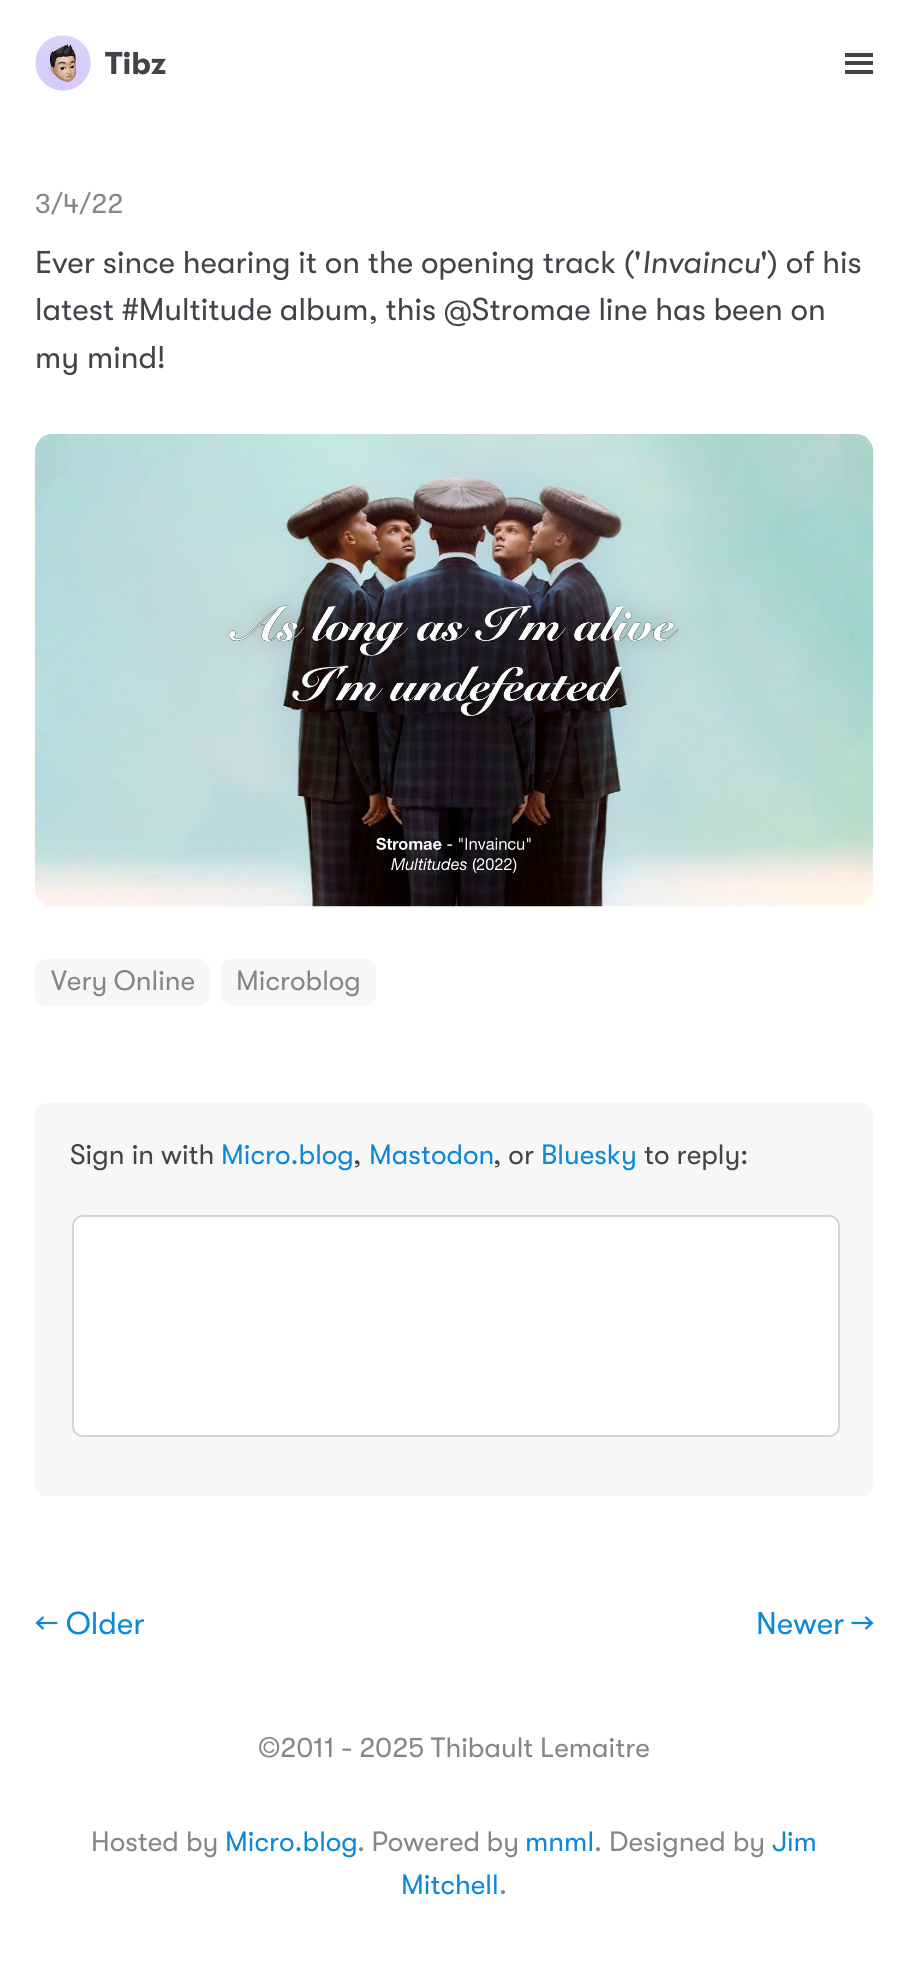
import math
import cairo

surface = cairo.ImageSurface(cairo.FORMAT_RGB24, 908, 1970)
ctx = cairo.Context(surface)
options = cairo.FontOptions()
options.set_hint_metrics(cairo.HINT_METRICS_OFF)
options.set_hint_style(cairo.HINT_STYLE_NONE)
ctx.set_font_options(options)
ctx.set_miter_limit(4)


def spaced_text(x, y, s, letter, word):
    ctx.move_to(x, y)
    for ch in s:
        ctx.show_text(ch)
        ctx.rel_move_to(letter + word * (ch == ' '), 0)


def round_rect(x, y, w, h, r):
    ctx.new_sub_path()
    for i, (u, v) in enumerate([(x + w - r, y + h - r), (x + r, y + h - r), (x + r, y + r), (x + w - r, y + r)]):
        ctx.arc(u, v, r, i * math.pi / 2, (i + 1) * math.pi / 2)
    ctx.close_path()


def picture(path, x, y, w, h):
    ctx.save()
    ctx.set_source_surface(cairo.ImageSurface.create_from_png(path), x, y)
    ctx.rectangle(x, y, w, h)
    ctx.fill()
    ctx.restore()


ctx.set_source_rgb(1, 1, 1)
ctx.paint()
picture("img1.png", 35, 35, 56, 56)
ctx.select_font_face("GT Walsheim", cairo.FONT_SLANT_NORMAL, cairo.FONT_WEIGHT_BOLD)
ctx.set_font_size(31.5)
ctx.set_source_rgb(0.259, 0.267, 0.29)
ctx.move_to(105, 74)
ctx.show_text("Tibz")
ctx.rectangle(845, 53, 28, 4)
ctx.fill()
ctx.rectangle(845, 61, 28, 4)
ctx.fill()
ctx.rectangle(845, 70, 28, 4)
ctx.fill()
ctx.select_font_face("GT Walsheim")
ctx.set_font_size(28)
ctx.set_source_rgb(0.518, 0.525, 0.545)
ctx.move_to(35, 213)
ctx.show_text("3/4/22")
ctx.set_font_size(31.5)
ctx.set_source_rgb(0.259, 0.267, 0.29)
spaced_text(35, 273, "Ever since hearing it on the opening track ('", 0, -0.25)
ctx.select_font_face("GT Walsheim", cairo.FONT_SLANT_ITALIC)
ctx.move_to(642, 273)
ctx.show_text("Invaincu")
ctx.select_font_face("GT Walsheim")
ctx.move_to(760, 273)
ctx.show_text("') of his")
spaced_text(35, 320, "latest #Multitude album, this @Stromae line has been on", 0, -0.25)
ctx.move_to(35, 368)
ctx.show_text("my mind!")
picture("img2.png", 35, 434, 839, 473)
ctx.set_source_rgb(0.965, 0.965, 0.965)
round_rect(35, 959, 175, 47, 11)
ctx.fill()
ctx.set_font_size(28)
ctx.set_source_rgb(0.518, 0.525, 0.545)
spaced_text(51, 990, "Very Online", 0, -1)
ctx.set_source_rgb(0.965, 0.965, 0.965)
round_rect(221, 959, 155, 47, 11)
ctx.fill()
ctx.set_source_rgb(0.518, 0.525, 0.545)
ctx.move_to(236, 990)
ctx.show_text("Microblog")
ctx.set_source_rgb(0.965, 0.965, 0.965)
round_rect(35, 1103, 838, 393, 11)
ctx.fill()
ctx.set_source_rgb(0.259, 0.267, 0.29)
ctx.move_to(70, 1164)
ctx.show_text("Sign in with")
ctx.set_source_rgb(0.051, 0.533, 0.847)
ctx.move_to(221, 1164)
ctx.show_text("Micro.blog")
ctx.set_source_rgb(0.259, 0.267, 0.29)
ctx.move_to(353, 1164)
ctx.show_text(",")
ctx.set_source_rgb(0.051, 0.533, 0.847)
ctx.move_to(369, 1164)
ctx.show_text("Mastodon")
ctx.set_source_rgb(0.259, 0.267, 0.29)
ctx.move_to(493, 1164)
ctx.show_text(", or")
ctx.set_source_rgb(0.051, 0.533, 0.847)
ctx.move_to(541, 1164)
ctx.show_text("Bluesky")
ctx.set_source_rgb(0.259, 0.267, 0.29)
ctx.move_to(644, 1164)
ctx.show_text("to reply:")
ctx.set_source_rgb(1, 1, 1)
round_rect(73, 1216, 766, 220, 10)
ctx.fill_preserve()
ctx.set_source_rgb(0.831, 0.831, 0.839)
ctx.stroke()
ctx.set_font_size(31.5)
ctx.set_source_rgb(0.051, 0.533, 0.847)
ctx.move_to(35, 1634)
ctx.show_text("← Older")
spaced_text(756, 1634, "Newer →", 0, -1)
ctx.set_font_size(28)
ctx.set_source_rgb(0.518, 0.525, 0.545)
spaced_text(258, 1757, "©2011 - 2025 Thibault Lemaitre", 0, -0.5)
ctx.move_to(91, 1851)
ctx.show_text("Hosted by")
ctx.set_source_rgb(0.051, 0.533, 0.847)
ctx.move_to(225, 1851)
ctx.show_text("Micro.blog")
ctx.set_source_rgb(0.518, 0.525, 0.545)
spaced_text(357, 1851, ". Powered by", 0, -0.5)
ctx.set_source_rgb(0.051, 0.533, 0.847)
ctx.move_to(525, 1851)
ctx.show_text("mnml")
ctx.set_source_rgb(0.518, 0.525, 0.545)
ctx.move_to(594, 1851)
ctx.show_text(". Designed by")
ctx.set_source_rgb(0.051, 0.533, 0.847)
ctx.move_to(772, 1851)
ctx.show_text("Jim")
ctx.move_to(401, 1894)
ctx.show_text("Mitchell")
ctx.set_source_rgb(0.518, 0.525, 0.545)
ctx.move_to(499, 1894)
ctx.show_text(".")
surface.write_to_png("page.png")
